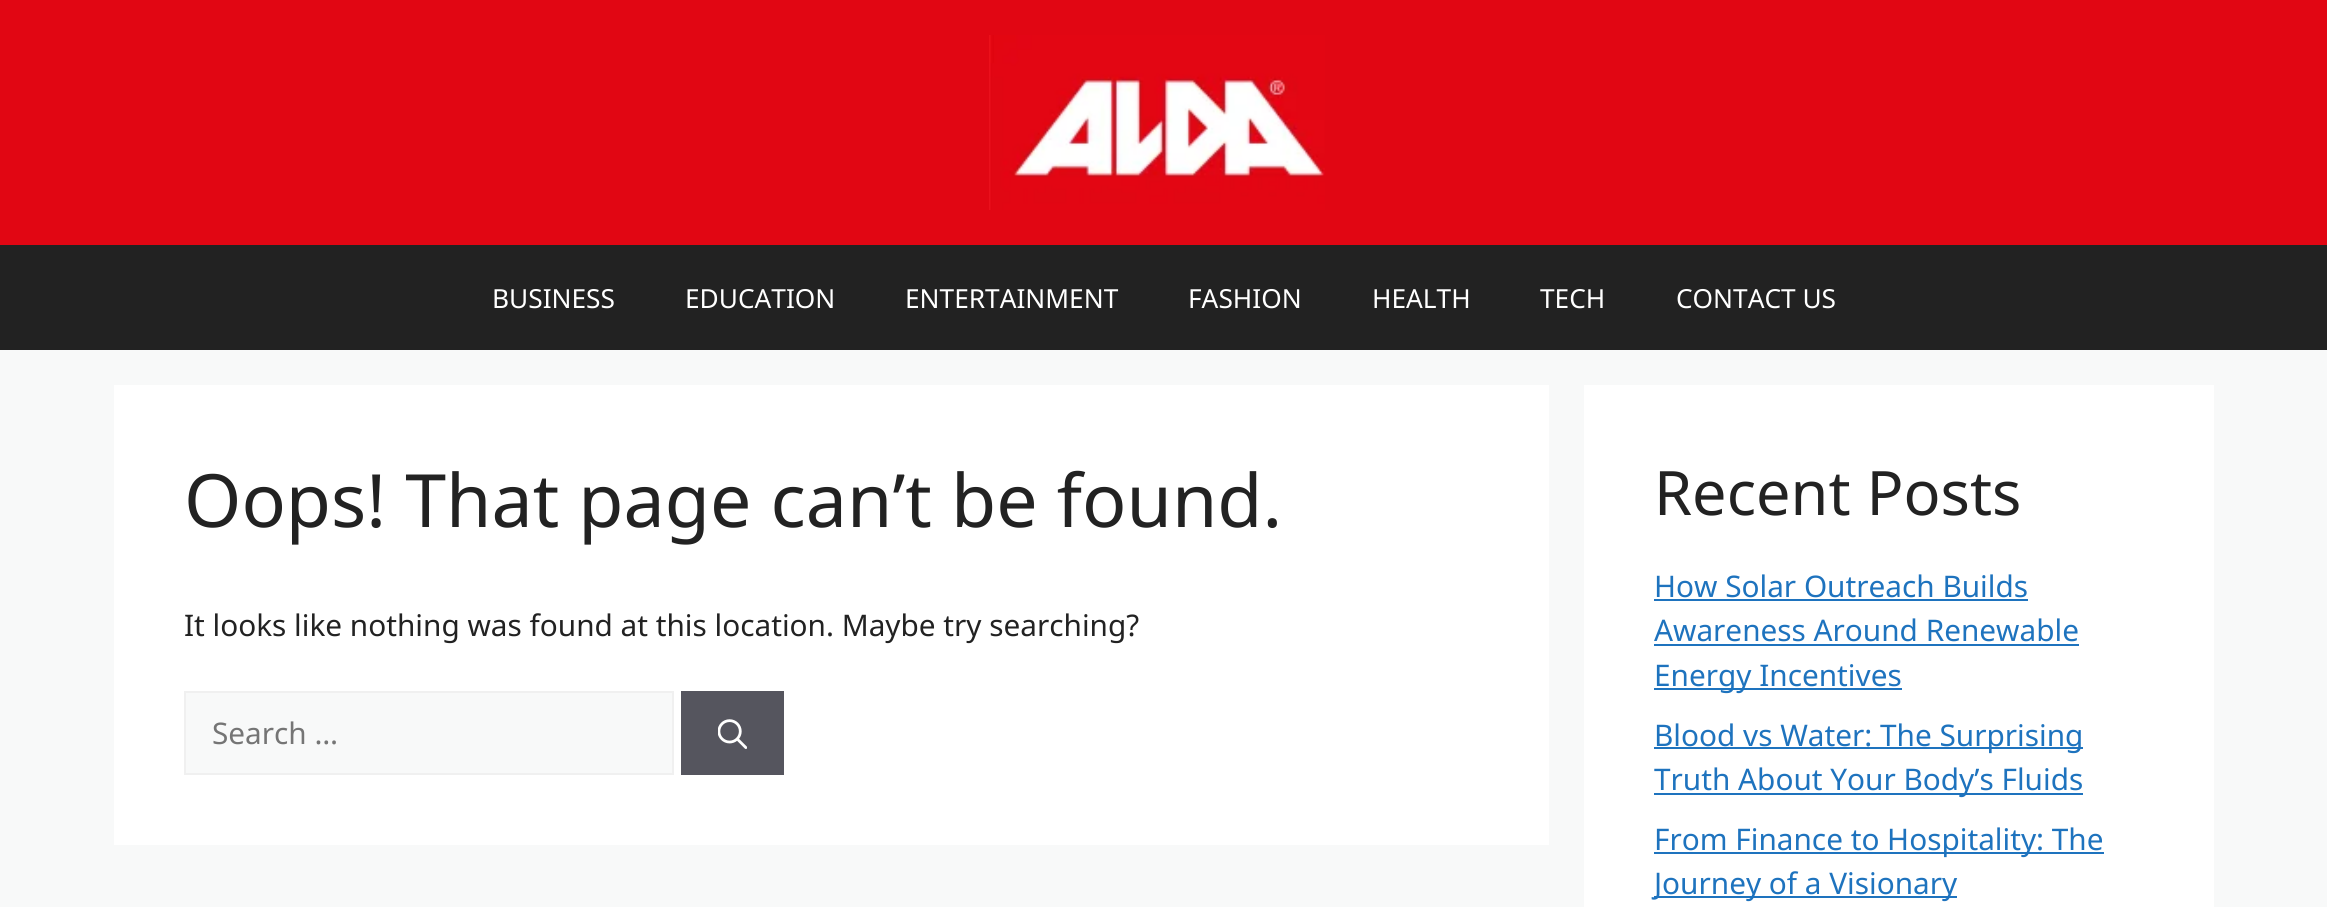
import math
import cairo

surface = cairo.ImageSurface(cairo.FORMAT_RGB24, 2327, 907)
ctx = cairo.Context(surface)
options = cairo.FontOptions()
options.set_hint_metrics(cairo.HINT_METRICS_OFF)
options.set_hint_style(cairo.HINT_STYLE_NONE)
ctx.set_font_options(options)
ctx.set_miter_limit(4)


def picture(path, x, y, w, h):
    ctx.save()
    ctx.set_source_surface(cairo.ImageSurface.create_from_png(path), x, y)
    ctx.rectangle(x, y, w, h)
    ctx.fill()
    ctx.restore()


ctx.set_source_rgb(0.969, 0.973, 0.976)
ctx.paint()
ctx.set_source_rgb(0.882, 0.027, 0.075)
ctx.rectangle(0, 0, 2327, 245)
ctx.fill()
picture("img1.png", 989, 35, 336, 175)
ctx.set_source_rgb(0.133, 0.133, 0.133)
ctx.rectangle(0, 245, 2327, 105)
ctx.fill()
ctx.select_font_face("Noto Sans")
ctx.set_font_size(26.25)
ctx.set_source_rgb(1, 1, 1)
ctx.move_to(492, 308)
ctx.show_text("BUSINESS")
ctx.move_to(685, 308)
ctx.show_text("EDUCATION")
ctx.move_to(905, 308)
ctx.show_text("ENTERTAINMENT")
ctx.move_to(1188, 308)
ctx.show_text("FASHION")
ctx.move_to(1372, 308)
ctx.show_text("HEALTH")
ctx.move_to(1540, 308)
ctx.show_text("TECH")
ctx.move_to(1676, 308)
ctx.show_text("CONTACT US")
ctx.rectangle(114, 385, 1435, 460)
ctx.fill()
ctx.set_font_size(73.5)
ctx.set_source_rgb(0.133, 0.133, 0.133)
ctx.move_to(184, 527)
ctx.show_text("Oops! That page can’t be found.")
ctx.set_font_size(29.75)
ctx.move_to(184, 636)
ctx.show_text("It looks like nothing was found at this location. Maybe try searching?")
ctx.set_source_rgb(0.969, 0.973, 0.976)
ctx.rectangle(185, 692, 488, 82)
ctx.fill_preserve()
ctx.set_source_rgb(0.941, 0.941, 0.941)
ctx.stroke()
ctx.set_source_rgb(0.459, 0.459, 0.459)
ctx.move_to(212, 744)
ctx.show_text("Search …")
ctx.set_source_rgb(0.333, 0.333, 0.369)
ctx.rectangle(681, 691, 103, 84)
ctx.fill()
picture("img2.png", 718, 719, 29, 30)
ctx.set_source_rgb(1, 1, 1)
ctx.rectangle(1584, 385, 630, 522)
ctx.fill()
ctx.set_font_size(61.25)
ctx.set_source_rgb(0.133, 0.133, 0.133)
ctx.move_to(1654, 515)
ctx.show_text("Recent Posts")
ctx.set_font_size(29.75)
ctx.set_source_rgb(0.118, 0.451, 0.745)
ctx.move_to(1654, 597)
ctx.show_text("How Solar Outreach Builds")
ctx.rectangle(1654, 599, 374, 2)
ctx.fill()
ctx.move_to(1654, 641)
ctx.show_text("Awareness Around Renewable")
ctx.rectangle(1654, 644, 425, 2)
ctx.fill()
ctx.rectangle(1654, 688, 248, 2)
ctx.fill()
ctx.move_to(1654, 686)
ctx.show_text("Energy Incentives")
ctx.rectangle(1654, 747, 429, 2)
ctx.fill()
ctx.move_to(1654, 746)
ctx.show_text("Blood vs Water: The Surprising")
ctx.rectangle(1654, 793, 429, 2)
ctx.fill()
ctx.move_to(1654, 790)
ctx.show_text("Truth About Your Body’s Fluids")
ctx.rectangle(1654, 852, 450, 2)
ctx.fill()
ctx.move_to(1654, 850)
ctx.show_text("From Finance to Hospitality: The")
ctx.rectangle(1654, 896, 303, 2)
ctx.fill()
ctx.move_to(1654, 894)
ctx.show_text("Journey of a Visionary")
surface.write_to_png("page.png")
